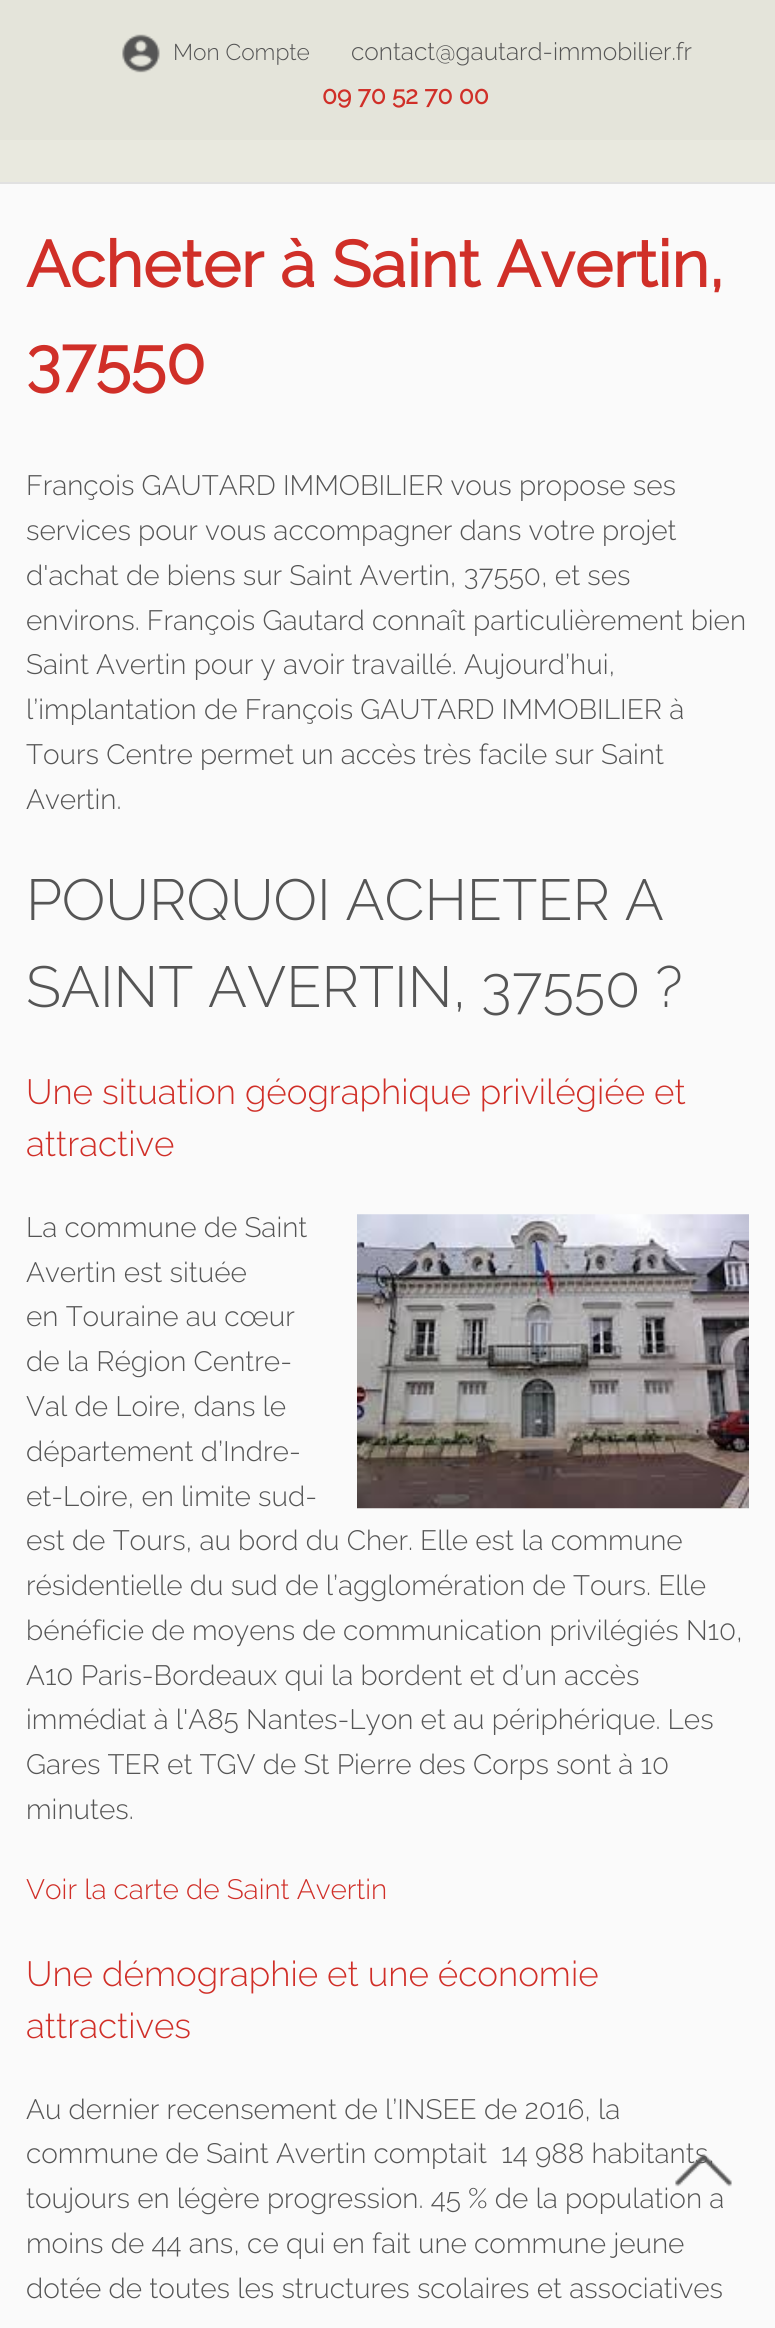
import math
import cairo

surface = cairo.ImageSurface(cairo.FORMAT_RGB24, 775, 2328)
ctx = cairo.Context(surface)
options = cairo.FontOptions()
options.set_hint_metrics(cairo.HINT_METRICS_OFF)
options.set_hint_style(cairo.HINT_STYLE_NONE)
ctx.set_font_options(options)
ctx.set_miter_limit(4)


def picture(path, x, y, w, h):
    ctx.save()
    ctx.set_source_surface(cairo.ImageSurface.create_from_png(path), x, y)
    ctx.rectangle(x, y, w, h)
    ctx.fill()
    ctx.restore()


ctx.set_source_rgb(0.98, 0.98, 0.98)
ctx.paint()
ctx.set_source_rgb(0.894, 0.894, 0.855)
ctx.rectangle(0, 0, 775, 140)
ctx.fill()
picture("img1.png", 122, 34, 38, 39)
ctx.select_font_face("Raleway Light")
ctx.set_font_size(22.75)
ctx.set_source_rgb(0.333, 0.333, 0.333)
ctx.move_to(173, 60)
ctx.show_text("Mon Compte")
ctx.set_font_size(24.5)
ctx.move_to(351, 60)
ctx.show_text("contact@gautard-immobilier.fr")
ctx.select_font_face("Raleway", cairo.FONT_SLANT_NORMAL, cairo.FONT_WEIGHT_BOLD)
ctx.set_source_rgb(0.816, 0.184, 0.157)
ctx.move_to(322, 104)
ctx.show_text("09 70 52 70 00")
ctx.set_source_rgb(0.914, 0.914, 0.875)
ctx.rectangle(0, 140, 775, 42)
ctx.fill()
ctx.set_source_rgb(0.882, 0.882, 0.882)
ctx.rectangle(0, 182, 775, 2)
ctx.fill()
ctx.set_font_size(64.75)
ctx.set_source_rgb(0.816, 0.184, 0.157)
ctx.move_to(26, 287)
ctx.show_text("Acheter à Saint Avertin,")
ctx.move_to(26, 384)
ctx.show_text("37550")
ctx.select_font_face("Raleway Light")
ctx.set_font_size(28)
ctx.set_source_rgb(0.333, 0.333, 0.333)
ctx.move_to(26, 495)
ctx.show_text("François GAUTARD IMMOBILIER vous propose ses")
ctx.move_to(26, 540)
ctx.show_text("services pour vous accompagner dans votre projet")
ctx.move_to(26, 585)
ctx.show_text("d'achat de biens sur Saint Avertin, 37550, et ses")
ctx.move_to(26, 630)
ctx.show_text("environs. François Gautard connaît particulièrement bien")
ctx.move_to(26, 674)
ctx.show_text("Saint Avertin pour y avoir travaillé. Aujourd’hui,")
ctx.move_to(26, 719)
ctx.show_text("l’implantation de François GAUTARD IMMOBILIER à")
ctx.move_to(26, 764)
ctx.show_text("Tours Centre permet un accès très facile sur Saint")
ctx.move_to(26, 809)
ctx.show_text("Avertin.")
ctx.set_font_size(57.75)
ctx.move_to(26, 920)
ctx.show_text("POURQUOI ACHETER A")
ctx.move_to(26, 1007)
ctx.show_text("SAINT AVERTIN, 37550 ?")
ctx.set_font_size(35)
ctx.set_source_rgb(0.816, 0.184, 0.157)
ctx.move_to(26, 1104)
ctx.show_text("Une situation géographique privilégiée et")
ctx.move_to(26, 1156)
ctx.show_text("attractive")
picture("img2.png", 357, 1214, 392, 295)
ctx.set_font_size(28)
ctx.set_source_rgb(0.333, 0.333, 0.333)
ctx.move_to(26, 1237)
ctx.show_text("La commune de Saint")
ctx.move_to(26, 1282)
ctx.show_text("Avertin est située")
ctx.move_to(26, 1326)
ctx.show_text("en Touraine au cœur")
ctx.move_to(26, 1371)
ctx.show_text("de la Région Centre-")
ctx.move_to(26, 1416)
ctx.show_text("Val de Loire, dans le")
ctx.move_to(26, 1461)
ctx.show_text("département d’Indre-")
ctx.move_to(26, 1506)
ctx.show_text("et-Loire, en limite sud-")
ctx.move_to(26, 1550)
ctx.show_text("est de Tours, au bord du Cher. Elle est la commune")
ctx.move_to(26, 1595)
ctx.show_text("résidentielle du sud de l’agglomération de Tours. Elle")
ctx.move_to(26, 1640)
ctx.show_text("bénéficie de moyens de communication privilégiés N10,")
ctx.move_to(26, 1685)
ctx.show_text("A10 Paris-Bordeaux qui la bordent et d’un accès")
ctx.move_to(26, 1729)
ctx.show_text("immédiat à l'A85 Nantes-Lyon et au périphérique. Les")
ctx.move_to(26, 1774)
ctx.show_text("Gares TER et TGV de St Pierre des Corps sont à 10")
ctx.move_to(26, 1819)
ctx.show_text("minutes.")
ctx.set_source_rgb(0.816, 0.184, 0.157)
ctx.move_to(26, 1899)
ctx.show_text("Voir la carte de Saint Avertin")
ctx.set_font_size(35)
ctx.move_to(26, 1986)
ctx.show_text("Une démographie et une économie")
ctx.move_to(26, 2038)
ctx.show_text("attractives")
ctx.set_font_size(28)
ctx.set_source_rgb(0.333, 0.333, 0.333)
ctx.move_to(26, 2119)
ctx.show_text("Au dernier recensement de l’INSEE de 2016, la")
ctx.move_to(26, 2163)
ctx.show_text("commune de Saint Avertin comptait  14 988 habitants,")
ctx.move_to(26, 2208)
ctx.show_text("toujours en légère progression. 45 % de la population a")
ctx.move_to(26, 2253)
ctx.show_text("moins de 44 ans, ce qui en fait une commune jeune")
ctx.move_to(26, 2298)
ctx.show_text("dotée de toutes les structures scolaires et associatives")
picture("img3.png", 675, 2154, 57, 33)
surface.write_to_png("page.png")
